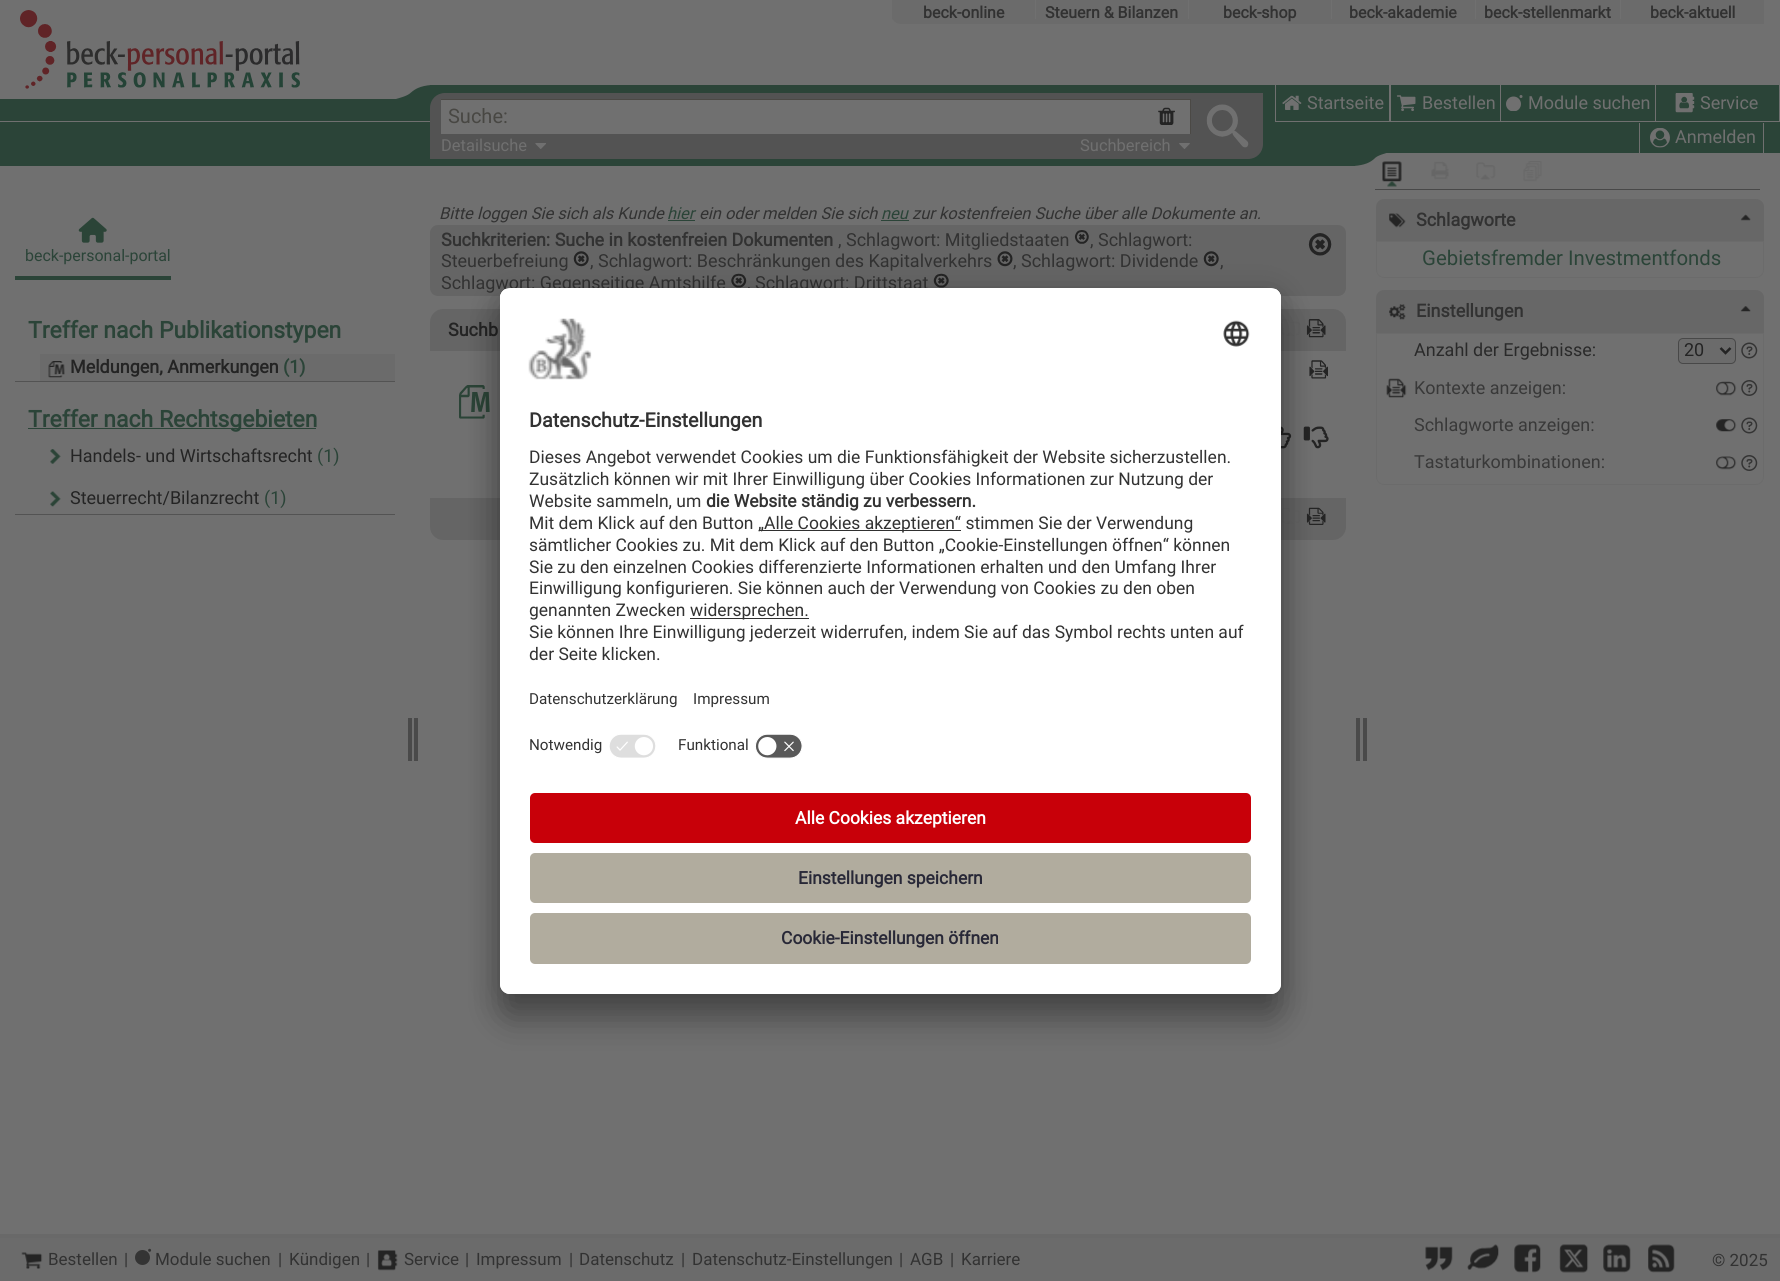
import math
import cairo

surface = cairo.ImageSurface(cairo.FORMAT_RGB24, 1780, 1281)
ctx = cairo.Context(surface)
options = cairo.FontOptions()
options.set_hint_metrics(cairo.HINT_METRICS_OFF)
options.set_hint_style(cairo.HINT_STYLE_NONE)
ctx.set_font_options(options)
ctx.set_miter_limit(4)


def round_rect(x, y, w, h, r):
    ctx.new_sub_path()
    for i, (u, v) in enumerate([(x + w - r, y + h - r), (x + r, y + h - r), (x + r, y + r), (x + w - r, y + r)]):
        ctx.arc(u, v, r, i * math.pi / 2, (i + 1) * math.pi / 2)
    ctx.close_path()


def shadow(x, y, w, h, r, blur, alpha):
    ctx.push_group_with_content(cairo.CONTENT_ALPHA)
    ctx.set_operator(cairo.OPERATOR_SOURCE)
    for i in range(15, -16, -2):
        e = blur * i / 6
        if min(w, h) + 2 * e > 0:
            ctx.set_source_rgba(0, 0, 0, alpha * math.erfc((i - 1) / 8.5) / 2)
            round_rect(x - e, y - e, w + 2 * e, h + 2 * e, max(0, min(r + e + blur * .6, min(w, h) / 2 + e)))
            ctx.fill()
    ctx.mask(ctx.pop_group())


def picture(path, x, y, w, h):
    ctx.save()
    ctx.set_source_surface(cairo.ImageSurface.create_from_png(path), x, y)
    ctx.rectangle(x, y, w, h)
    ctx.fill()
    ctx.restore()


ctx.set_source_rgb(0.439, 0.439, 0.439)
ctx.paint()
ctx.set_source_rgb(0.42, 0.42, 0.42)
ctx.new_path()
ctx.move_to(891, 0)
ctx.line_to(1764, 0)
ctx.line_to(1764, 24)
ctx.line_to(901, 24)
ctx.curve_to(895.5, 24, 891, 19.5, 891, 14)
ctx.close_path()
ctx.fill()
ctx.set_source_rgb(0.439, 0.439, 0.439)
ctx.rectangle(891, 0, 1, 19)
ctx.fill()
ctx.select_font_face("Roboto", cairo.FONT_SLANT_NORMAL, cairo.FONT_WEIGHT_BOLD)
ctx.set_font_size(16)
ctx.set_source_rgb(0.196, 0.196, 0.196)
ctx.move_to(923, 18)
ctx.show_text("beck-online")
ctx.set_source_rgb(0.439, 0.439, 0.439)
ctx.rectangle(1035, 0, 1, 19)
ctx.fill()
ctx.set_source_rgb(0.196, 0.196, 0.196)
ctx.move_to(1045, 18)
ctx.show_text("Steuern & Bilanzen")
ctx.set_source_rgb(0.439, 0.439, 0.439)
ctx.rectangle(1188, 0, 1, 19)
ctx.fill()
ctx.set_source_rgb(0.196, 0.196, 0.196)
ctx.move_to(1223, 18)
ctx.show_text("beck-shop")
ctx.set_source_rgb(0.439, 0.439, 0.439)
ctx.rectangle(1331, 0, 1, 19)
ctx.fill()
ctx.set_source_rgb(0.196, 0.196, 0.196)
ctx.move_to(1349, 18)
ctx.show_text("beck-akademie")
ctx.set_source_rgb(0.439, 0.439, 0.439)
ctx.rectangle(1475, 0, 1, 19)
ctx.fill()
ctx.set_source_rgb(0.196, 0.196, 0.196)
ctx.move_to(1484, 18)
ctx.show_text("beck-stellenmarkt")
ctx.set_source_rgb(0.439, 0.439, 0.439)
ctx.rectangle(1620, 0, 1, 19)
ctx.fill()
ctx.set_source_rgb(0.196, 0.196, 0.196)
ctx.move_to(1650, 18)
ctx.show_text("beck-aktuell")
ctx.set_source_rgb(0.169, 0.267, 0.22)
ctx.rectangle(0, 99, 383, 67)
ctx.fill()
picture("img1.png", 20, 10, 280, 79)
ctx.set_source_rgb(0.439, 0.439, 0.439)
ctx.rectangle(0, 121, 383, 1)
ctx.fill()
ctx.set_source_rgb(0.169, 0.267, 0.22)
ctx.rectangle(383, 85, 1397, 81)
ctx.fill()
ctx.set_source_rgb(0.439, 0.439, 0.439)
ctx.rectangle(383, 85, 47, 14)
ctx.fill()
ctx.save()
ctx.rectangle(393, 0, 37, 99)
ctx.clip()
ctx.set_source_rgb(0.169, 0.267, 0.22)
ctx.new_path()
ctx.move_to(392.5, 100)
ctx.curve_to(401, 97.5, 407.5, 96, 411, 92.5)
ctx.curve_to(415, 89, 420, 86, 431, 85)
ctx.line_to(431, 100)
ctx.fill()
ctx.restore()
ctx.rectangle(383, 121, 47, 1)
ctx.fill()
ctx.set_source_rgb(0.325, 0.325, 0.325)
ctx.new_path()
ctx.move_to(445, 93)
ctx.line_to(1263, 93)
ctx.line_to(1263, 144)
ctx.curve_to(1263, 152.5, 1256.5, 159, 1248, 159)
ctx.line_to(430, 159)
ctx.line_to(430, 108)
ctx.curve_to(430, 99.5, 436.5, 93, 445, 93)
ctx.close_path()
ctx.fill()
ctx.set_source_rgb(0.439, 0.439, 0.439)
ctx.rectangle(441, 100, 749, 34)
ctx.fill()
ctx.set_source_rgb(0.294, 0.286, 0.271)
ctx.rectangle(441, 99, 750, 1)
ctx.fill()
ctx.rectangle(1190, 99, 1, 35)
ctx.fill()
ctx.select_font_face("Roboto")
ctx.set_font_size(20)
ctx.set_source_rgb(0.282, 0.278, 0.263)
ctx.move_to(448, 123)
ctx.show_text("Suche:")
picture("img2.png", 1158, 107, 17, 18)
ctx.set_font_size(16.5)
ctx.set_source_rgb(0.439, 0.439, 0.439)
ctx.move_to(441, 151)
ctx.show_text("Detailsuche")
picture("img3.png", 535, 143, 11, 6)
ctx.move_to(1080, 151)
ctx.show_text("Suchbereich")
picture("img4.png", 1179, 143, 11, 6)
picture("img5.png", 1206, 104, 43, 44)
ctx.rectangle(1275, 121, 505, 1)
ctx.fill()
ctx.rectangle(1389, 85, 2, 36)
ctx.fill()
ctx.rectangle(1275, 85, 1, 36)
ctx.fill()
picture("img6.png", 1282, 95, 20, 15)
ctx.set_font_size(18)
ctx.move_to(1307, 109)
ctx.show_text("Startseite")
ctx.rectangle(1779, 85, 1, 36)
ctx.fill()
picture("img7.png", 1396, 95, 20, 16)
ctx.move_to(1422, 109)
ctx.show_text("Bestellen")
ctx.rectangle(1500, 85, 1, 36)
ctx.fill()
ctx.save()
ctx.rectangle(1506, 95, 17, 16)
ctx.clip()
ctx.arc(1513.5, 104, 7.5, 0, 2 * math.pi)
ctx.fill()
ctx.restore()
ctx.arc(1521, 96.5, 1.5, 0, 2 * math.pi)
ctx.fill()
ctx.move_to(1528, 109)
ctx.show_text("Module suchen")
ctx.rectangle(1655, 85, 1, 36)
ctx.fill()
picture("img8.png", 1675, 93, 20, 20)
ctx.move_to(1700, 109)
ctx.show_text("Service")
ctx.rectangle(1763, 123, 1, 30)
ctx.fill()
ctx.rectangle(1639, 123, 1, 30)
ctx.fill()
picture("img9.png", 1650, 128, 20, 20)
ctx.move_to(1675, 143)
ctx.show_text("Anmelden")
ctx.rectangle(1355, 153, 425, 13)
ctx.fill()
ctx.save()
ctx.rectangle(1355, 153, 38, 13)
ctx.clip()
ctx.set_source_rgb(0.169, 0.267, 0.22)
ctx.new_path()
ctx.move_to(1392.5, 151)
ctx.curve_to(1384, 154, 1377.5, 155, 1374, 159)
ctx.curve_to(1370, 162.5, 1365, 165, 1354, 166)
ctx.line_to(1354, 151)
ctx.fill()
ctx.restore()
picture("img10.png", 1382, 161, 20, 21)
picture("img11.png", 1431, 161, 18, 19)
picture("img12.png", 1476, 162, 20, 18)
picture("img13.png", 1523, 161, 19, 21)
picture("img14.png", 1387, 180, 10, 7)
ctx.set_source_rgb(0.282, 0.282, 0.282)
ctx.rectangle(1375, 189, 385, 1)
ctx.fill()
picture("img15.png", 78, 217, 29, 26)
ctx.set_font_size(16)
ctx.set_source_rgb(0.169, 0.267, 0.22)
ctx.move_to(25, 261)
ctx.show_text("beck-personal-portal")
ctx.rectangle(15, 276, 156, 4)
ctx.fill()
ctx.set_source_rgb(0.325, 0.325, 0.325)
ctx.rectangle(15, 381, 380, 1)
ctx.fill()
ctx.select_font_face("Roboto", cairo.FONT_SLANT_NORMAL, cairo.FONT_WEIGHT_BOLD)
ctx.set_font_size(23)
ctx.set_source_rgb(0.169, 0.267, 0.22)
ctx.move_to(28, 338)
ctx.show_text("Treffer nach Publikationstypen")
ctx.set_source_rgb(0.42, 0.42, 0.42)
ctx.rectangle(40, 354, 355, 27)
ctx.fill()
picture("img16.png", 48, 361, 17, 17)
ctx.set_font_size(18)
ctx.set_source_rgb(0.141, 0.141, 0.141)
ctx.move_to(70, 373)
ctx.show_text("Meldungen, Anmerkungen")
ctx.set_source_rgb(0.169, 0.267, 0.22)
ctx.move_to(283, 373)
ctx.show_text("(1)")
ctx.set_source_rgb(0.325, 0.325, 0.325)
ctx.rectangle(15, 514, 380, 1)
ctx.fill()
ctx.set_source_rgb(0.169, 0.267, 0.22)
ctx.rectangle(28, 428, 288, 1)
ctx.fill()
ctx.set_font_size(23)
ctx.move_to(28, 427)
ctx.show_text("Treffer nach Rechtsgebieten")
picture("img17.png", 50, 449, 11, 15)
ctx.select_font_face("Roboto")
ctx.set_font_size(18)
ctx.set_source_rgb(0.141, 0.141, 0.141)
ctx.move_to(70, 462)
ctx.show_text("Handels- und Wirtschaftsrecht")
ctx.set_source_rgb(0.169, 0.267, 0.22)
ctx.move_to(317, 462)
ctx.show_text("(1)")
picture("img18.png", 50, 491, 11, 16)
ctx.set_source_rgb(0.141, 0.141, 0.141)
ctx.move_to(70, 504)
ctx.show_text("Steuerrecht/Bilanzrecht")
ctx.set_source_rgb(0.169, 0.267, 0.22)
ctx.move_to(264, 504)
ctx.show_text("(1)")
ctx.set_source_rgb(0.29, 0.29, 0.29)
ctx.rectangle(414, 718, 4, 43)
ctx.fill()
ctx.rectangle(408, 718, 4, 43)
ctx.fill()
ctx.select_font_face("Roboto", cairo.FONT_SLANT_ITALIC)
ctx.set_font_size(16.5)
ctx.set_source_rgb(0.196, 0.196, 0.196)
ctx.move_to(439, 219)
ctx.show_text("Bitte loggen Sie sich als Kunde")
ctx.set_source_rgb(0.169, 0.267, 0.22)
ctx.move_to(667, 219)
ctx.show_text("hier")
ctx.rectangle(668, 220, 27, 1)
ctx.fill()
ctx.set_source_rgb(0.196, 0.196, 0.196)
ctx.move_to(699, 219)
ctx.show_text("ein oder melden Sie sich")
ctx.set_source_rgb(0.169, 0.267, 0.22)
ctx.move_to(881, 219)
ctx.show_text("neu")
ctx.rectangle(881, 220, 28, 1)
ctx.fill()
ctx.set_source_rgb(0.196, 0.196, 0.196)
ctx.move_to(912, 219)
ctx.show_text("zur kostenfreien Suche über alle Dokumente an.")
ctx.set_source_rgb(0.396, 0.396, 0.396)
round_rect(430, 225, 916, 71, 8)
ctx.fill()
ctx.select_font_face("Roboto", cairo.FONT_SLANT_NORMAL, cairo.FONT_WEIGHT_BOLD)
ctx.set_font_size(18)
ctx.set_source_rgb(0.196, 0.196, 0.196)
ctx.move_to(441, 246)
ctx.show_text("Suchkriterien: Suche in kostenfreien Dokumenten")
ctx.select_font_face("Roboto")
ctx.move_to(838, 246)
ctx.show_text(", Schlagwort: Mitgliedstaaten")
picture("img19.png", 1074, 230, 15, 14)
ctx.move_to(1090, 246)
ctx.show_text(", Schlagwort:")
ctx.move_to(441, 267)
ctx.show_text("Steuerbefreiung")
picture("img20.png", 573, 251, 16, 16)
ctx.move_to(590, 267)
ctx.show_text(", Schlagwort: Beschränkungen des Kapitalverkehrs")
picture("img21.png", 997, 251, 16, 16)
ctx.move_to(1013, 267)
ctx.show_text(", Schlagwort: Dividende")
picture("img22.png", 1203, 251, 16, 16)
ctx.move_to(1220, 267)
ctx.show_text(",")
ctx.move_to(441, 289)
ctx.show_text("Schlagwort: Gegenseitige Amtshilfe")
picture("img23.png", 731, 273, 16, 15)
ctx.move_to(747, 289)
ctx.show_text(", Schlagwort: Drittstaat")
picture("img24.png", 933, 273, 16, 15)
picture("img25.png", 1308, 233, 24, 23)
ctx.set_source_rgb(0.396, 0.396, 0.396)
ctx.new_path()
ctx.move_to(443, 309)
ctx.line_to(1333, 309)
ctx.curve_to(1340, 309, 1346, 315, 1346, 322)
ctx.line_to(1346, 351)
ctx.line_to(430, 351)
ctx.line_to(430, 322)
ctx.curve_to(430, 315, 436, 309, 443, 309)
ctx.close_path()
ctx.fill()
ctx.select_font_face("Roboto", cairo.FONT_SLANT_NORMAL, cairo.FONT_WEIGHT_BOLD)
ctx.set_source_rgb(0.141, 0.141, 0.141)
ctx.move_to(448, 336)
ctx.show_text("Suchb")
picture("img26.png", 1282, 319, 18, 17)
picture("img27.png", 1306, 319, 20, 19)
picture("img28.png", 459, 385, 31, 34)
picture("img29.png", 1309, 360, 19, 19)
picture("img30.png", 1281, 426, 11, 23)
picture("img31.png", 1303, 426, 26, 23)
ctx.set_source_rgb(0.396, 0.396, 0.396)
ctx.new_path()
ctx.move_to(430, 498)
ctx.line_to(1346, 498)
ctx.line_to(1346, 527)
ctx.curve_to(1346, 534, 1340, 540, 1333, 540)
ctx.line_to(443, 540)
ctx.curve_to(436, 540, 430, 534, 430, 527)
ctx.close_path()
ctx.fill()
picture("img32.png", 1282, 508, 18, 16)
picture("img33.png", 1306, 507, 20, 18)
ctx.set_source_rgb(0.404, 0.404, 0.404)
ctx.new_path()
ctx.move_to(1384, 199)
ctx.line_to(1756, 199)
ctx.curve_to(1760.5, 199, 1764, 202.5, 1764, 207)
ctx.line_to(1764, 241)
ctx.line_to(1376, 241)
ctx.line_to(1376, 207)
ctx.curve_to(1376, 202.5, 1379.5, 199, 1384, 199)
ctx.close_path()
ctx.fill()
picture("img34.png", 1389, 213, 17, 15)
ctx.set_source_rgb(0.196, 0.196, 0.196)
ctx.move_to(1416, 226)
ctx.show_text("Schlagworte")
picture("img35.png", 1740, 214, 11, 7)
ctx.new_path()
ctx.move_to(1376.5, 241.5)
ctx.line_to(1763.5, 241.5)
ctx.line_to(1763.5, 270)
ctx.curve_to(1763.5, 274, 1760, 277.5, 1756, 277.5)
ctx.line_to(1384, 277.5)
ctx.curve_to(1380, 277.5, 1376.5, 274, 1376.5, 270)
ctx.close_path()
ctx.set_source_rgb(0.42, 0.42, 0.42)
ctx.set_line_width(1)
ctx.stroke()
ctx.select_font_face("Roboto")
ctx.set_font_size(20.4)
ctx.set_source_rgb(0.169, 0.267, 0.22)
ctx.move_to(1422, 265)
ctx.show_text("Gebietsfremder Investmentfonds")
ctx.set_source_rgb(0.404, 0.404, 0.404)
ctx.new_path()
ctx.move_to(1384, 290)
ctx.line_to(1756, 290)
ctx.curve_to(1760.5, 290, 1764, 293.5, 1764, 298)
ctx.line_to(1764, 333)
ctx.line_to(1376, 333)
ctx.line_to(1376, 298)
ctx.curve_to(1376, 293.5, 1379.5, 290, 1384, 290)
ctx.close_path()
ctx.fill()
picture("img36.png", 1389, 304, 17, 16)
ctx.select_font_face("Roboto", cairo.FONT_SLANT_NORMAL, cairo.FONT_WEIGHT_BOLD)
ctx.set_font_size(18)
ctx.set_source_rgb(0.196, 0.196, 0.196)
ctx.move_to(1416, 317)
ctx.show_text("Einstellungen")
picture("img37.png", 1740, 306, 11, 6)
ctx.new_path()
ctx.move_to(1376.5, 333.5)
ctx.line_to(1763.5, 333.5)
ctx.line_to(1763.5, 477)
ctx.curve_to(1763.5, 481, 1760, 484.5, 1756, 484.5)
ctx.line_to(1384, 484.5)
ctx.curve_to(1380, 484.5, 1376.5, 481, 1376.5, 477)
ctx.close_path()
ctx.set_source_rgb(0.42, 0.42, 0.42)
ctx.stroke()
ctx.select_font_face("Roboto")
ctx.set_source_rgb(0.165, 0.165, 0.165)
ctx.move_to(1414, 356)
ctx.show_text("Anzahl der Ergebnisse:")
ctx.set_source_rgb(0.42, 0.42, 0.42)
round_rect(1678.5, 338.5, 57, 25, 4.5)
ctx.fill_preserve()
ctx.set_source_rgb(0.282, 0.282, 0.282)
ctx.stroke()
ctx.new_path()
ctx.move_to(1720.5, 348)
ctx.line_to(1725.5, 353)
ctx.line_to(1730.5, 348)
ctx.set_source_rgb(0.141, 0.141, 0.141)
ctx.set_line_width(2.5)
ctx.stroke()
ctx.move_to(1684, 356)
ctx.show_text("20")
picture("img38.png", 1741, 342, 17, 17)
picture("img39.png", 1386, 378, 21, 20)
ctx.set_source_rgb(0.224, 0.224, 0.224)
ctx.move_to(1414, 394)
ctx.show_text("Kontexte anzeigen:")
picture("img40.png", 1716, 381, 21, 15)
picture("img41.png", 1741, 380, 17, 16)
ctx.move_to(1414, 431)
ctx.show_text("Schlagworte anzeigen:")
picture("img42.png", 1716, 419, 21, 13)
picture("img38.png", 1741, 417, 17, 17)
ctx.move_to(1414, 468)
ctx.show_text("Tastaturkombinationen:")
picture("img43.png", 1716, 456, 21, 14)
picture("img41.png", 1741, 455, 17, 16)
ctx.set_source_rgb(0.29, 0.29, 0.29)
ctx.rectangle(1363, 718, 4, 43)
ctx.fill()
ctx.rectangle(1356, 718, 4, 43)
ctx.fill()
ctx.set_source_rgb(0, 0, 0)
shadow(500, 313, 781, 706, 10, 17.5, 0.3)
shadow(500, 294, 781, 706, 10, 16, 0.22)
ctx.set_source_rgb(1, 1, 1)
round_rect(500, 288, 781, 706, 10)
ctx.fill()
ctx.save()
round_rect(500, 288, 781, 706, 10)
ctx.clip()
ctx.new_path()
ctx.move_to(510, 288)
ctx.line_to(1271, 288)
ctx.curve_to(1276.5, 288, 1281, 292.5, 1281, 298)
ctx.line_to(1281, 778)
ctx.line_to(500, 778)
ctx.line_to(500, 298)
ctx.curve_to(500, 292.5, 504.5, 288, 510, 288)
ctx.close_path()
ctx.clip()
ctx.rectangle(500, 289, 781, 489)
ctx.fill()
ctx.rectangle(500, 289, 781, 439)
ctx.fill()
ctx.restore()
picture("img44.png", 528, 318, 64, 62)
picture("img45.png", 1223, 320, 27, 27)
ctx.select_font_face("Roboto", cairo.FONT_SLANT_NORMAL, cairo.FONT_WEIGHT_BOLD)
ctx.set_font_size(19.75)
ctx.set_source_rgb(0.196, 0.196, 0.196)
ctx.move_to(529, 427)
ctx.show_text("Datenschutz-Einstellungen")
ctx.select_font_face("Roboto")
ctx.set_font_size(17.5)
ctx.move_to(529, 463)
ctx.show_text("Dieses Angebot verwendet Cookies um die Funktionsfähigkeit der Website sicherzustellen.")
ctx.move_to(529, 485)
ctx.show_text("Zusätzlich können wir mit Ihrer Einwilligung über Cookies Informationen zur Nutzung der")
ctx.move_to(529, 507)
ctx.show_text("Website sammeln, um")
ctx.select_font_face("Roboto", cairo.FONT_SLANT_NORMAL, cairo.FONT_WEIGHT_BOLD)
ctx.move_to(706, 507)
ctx.show_text("die Website ständig zu verbessern.")
ctx.select_font_face("Roboto")
ctx.move_to(529, 529)
ctx.show_text("Mit dem Klick auf den Button")
ctx.set_source_rgb(0.188, 0.188, 0.188)
ctx.rectangle(759, 530, 202, 1)
ctx.fill()
ctx.set_source_rgb(0.196, 0.196, 0.196)
ctx.move_to(758, 529)
ctx.show_text("„Alle Cookies akzeptieren“ stimmen Sie der Verwendung")
ctx.move_to(529, 551)
ctx.show_text("sämtlicher Cookies zu. Mit dem Klick auf den Button „Cookie-Einstellungen öffnen“ können")
ctx.move_to(529, 573)
ctx.show_text("Sie zu den einzelnen Cookies differenzierte Informationen erhalten und den Umfang Ihrer")
ctx.move_to(529, 594)
ctx.show_text("Einwilligung konfigurieren. Sie können auch der Verwendung von Cookies zu den oben")
ctx.move_to(529, 616)
ctx.show_text("genannten Zwecken")
ctx.set_source_rgb(0.188, 0.188, 0.188)
ctx.rectangle(690, 618, 119, 1)
ctx.fill()
ctx.set_source_rgb(0.196, 0.196, 0.196)
ctx.move_to(690, 616)
ctx.show_text("widersprechen.")
ctx.move_to(529, 638)
ctx.show_text("Sie können Ihre Einwilligung jederzeit widerrufen, indem Sie auf das Symbol rechts unten auf")
ctx.move_to(529, 660)
ctx.show_text("der Seite klicken.")
ctx.set_font_size(15.25)
ctx.move_to(529, 704)
ctx.show_text("Datenschutzerklärung")
ctx.move_to(693, 704)
ctx.show_text("Impressum")
ctx.move_to(529, 750)
ctx.show_text("Notwendig")
picture("img46.png", 609, 734, 47, 24)
ctx.move_to(678, 750)
ctx.show_text("Funktional")
picture("img47.png", 755, 734, 48, 25)
ctx.set_source_rgb(1, 1, 1)
ctx.new_path()
ctx.move_to(500, 778)
ctx.line_to(1281, 778)
ctx.line_to(1281, 984)
ctx.curve_to(1281, 989.5, 1276.5, 994, 1271, 994)
ctx.line_to(510, 994)
ctx.curve_to(504.5, 994, 500, 989.5, 500, 984)
ctx.close_path()
ctx.fill()
ctx.set_source_rgb(0.784, 0, 0.039)
round_rect(530, 793, 721, 50, 5)
ctx.fill()
ctx.select_font_face("Roboto", cairo.FONT_SLANT_NORMAL, cairo.FONT_WEIGHT_BOLD)
ctx.set_font_size(17.5)
ctx.set_source_rgb(1, 1, 1)
ctx.move_to(795, 824)
ctx.show_text("Alle Cookies akzeptieren")
ctx.set_source_rgb(0.694, 0.675, 0.62)
round_rect(530, 853, 721, 50, 5)
ctx.fill()
ctx.set_source_rgb(0.157, 0.157, 0.216)
ctx.move_to(798, 884)
ctx.show_text("Einstellungen speichern")
ctx.set_source_rgb(0.694, 0.675, 0.62)
round_rect(530, 913, 721, 51, 5)
ctx.fill()
ctx.set_source_rgb(0.157, 0.157, 0.216)
ctx.move_to(781, 944)
ctx.show_text("Cookie-Einstellungen öffnen")
ctx.set_source_rgb(0.42, 0.42, 0.42)
ctx.rectangle(0, 1238, 1780, 43)
ctx.fill()
ctx.set_source_rgb(0.412, 0.412, 0.412)
ctx.rectangle(0, 1234, 1780, 4)
ctx.fill()
picture("img48.png", 21, 1252, 22, 17)
ctx.select_font_face("Roboto")
ctx.set_font_size(17)
ctx.set_source_rgb(0.196, 0.196, 0.196)
ctx.move_to(48, 1265)
ctx.show_text("Bestellen")
ctx.move_to(124, 1265)
ctx.show_text("|")
ctx.set_source_rgb(0.204, 0.204, 0.204)
ctx.new_path()
ctx.arc(142.5, 1257.5, 7.5, 0, 2 * math.pi)
ctx.fill()
ctx.arc(149.6, 1250.3, 1.5, 0, 2 * math.pi)
ctx.fill()
ctx.set_source_rgb(0.196, 0.196, 0.196)
ctx.move_to(155, 1265)
ctx.show_text("Module suchen")
ctx.move_to(278, 1265)
ctx.show_text("|")
ctx.move_to(289, 1265)
ctx.show_text("Kündigen")
ctx.move_to(366, 1265)
ctx.show_text("|")
picture("img49.png", 377, 1250, 21, 21)
ctx.move_to(404, 1265)
ctx.show_text("Service")
ctx.move_to(465, 1265)
ctx.show_text("|")
ctx.move_to(476, 1265)
ctx.show_text("Impressum")
ctx.move_to(569, 1265)
ctx.show_text("|")
ctx.move_to(579, 1265)
ctx.show_text("Datenschutz")
ctx.move_to(681, 1265)
ctx.show_text("|")
ctx.move_to(692, 1265)
ctx.show_text("Datenschutz-Einstellungen")
ctx.move_to(899, 1265)
ctx.show_text("|")
ctx.move_to(910, 1265)
ctx.show_text("AGB")
ctx.move_to(950, 1265)
ctx.show_text("|")
ctx.move_to(961, 1265)
ctx.show_text("Karriere")
picture("img50.png", 1425, 1246, 28, 25)
picture("img51.png", 1467, 1244, 32, 26)
picture("img52.png", 1514, 1244, 27, 29)
picture("img53.png", 1559, 1244, 30, 29)
picture("img54.png", 1603, 1244, 28, 29)
picture("img55.png", 1648, 1244, 27, 29)
ctx.move_to(1712, 1266)
ctx.show_text("© 2025")
surface.write_to_png("page.png")
